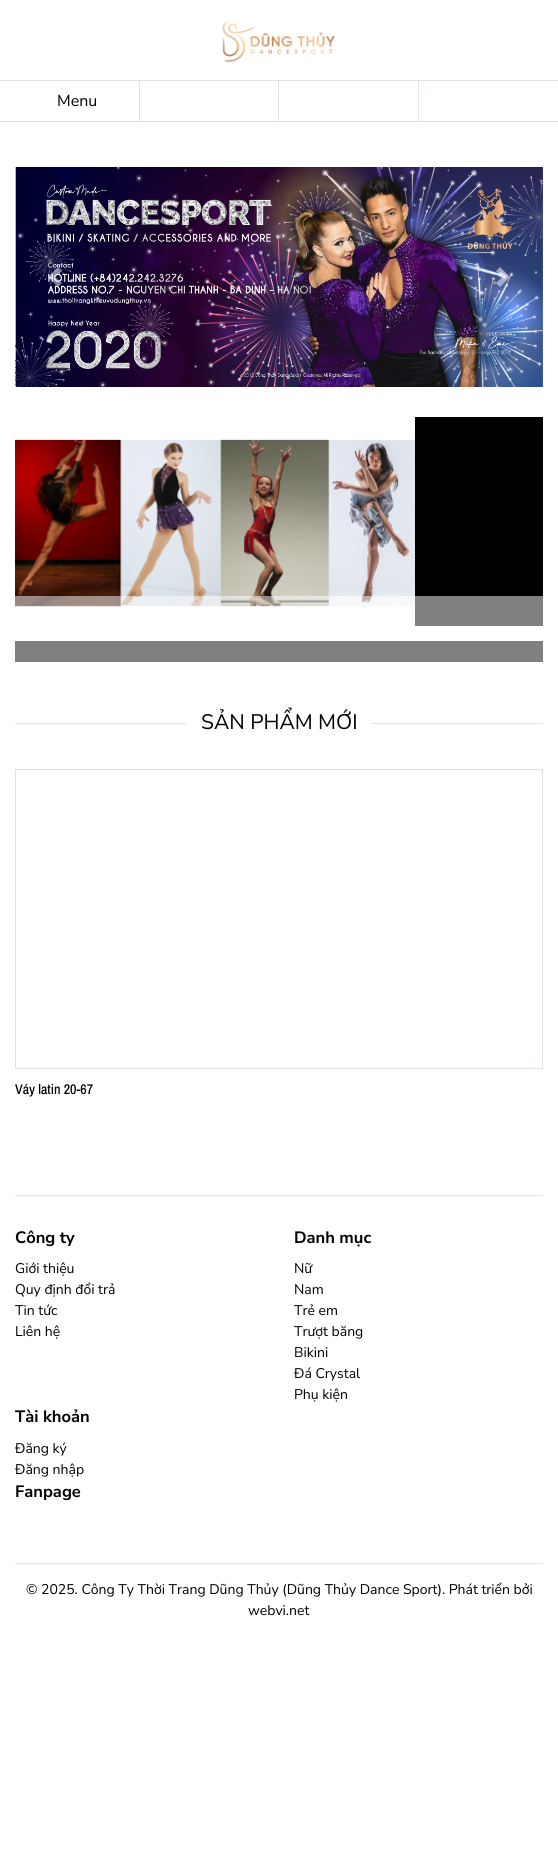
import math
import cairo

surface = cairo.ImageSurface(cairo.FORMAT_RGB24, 558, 1849)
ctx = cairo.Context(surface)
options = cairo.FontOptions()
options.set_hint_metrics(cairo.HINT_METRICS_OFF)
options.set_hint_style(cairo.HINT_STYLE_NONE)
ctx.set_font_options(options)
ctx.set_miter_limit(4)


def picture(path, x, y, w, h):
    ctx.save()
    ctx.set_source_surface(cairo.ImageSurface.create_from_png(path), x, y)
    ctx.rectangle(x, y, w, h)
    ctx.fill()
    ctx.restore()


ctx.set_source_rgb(1, 1, 1)
ctx.paint()
picture("img1.png", 222, 19, 114, 44)
ctx.set_source_rgb(0.871, 0.878, 0.914)
ctx.rectangle(0, 80, 558, 1)
ctx.fill()
ctx.rectangle(0, 121, 558, 1)
ctx.fill()
ctx.rectangle(139, 81, 1, 40)
ctx.fill()
ctx.select_font_face("Nunito Sans")
ctx.set_font_size(16)
ctx.set_source_rgb(0, 0, 0)
ctx.move_to(57, 106)
ctx.show_text("Menu")
ctx.set_source_rgb(0.871, 0.878, 0.914)
ctx.rectangle(278, 81, 1, 40)
ctx.fill()
ctx.rectangle(418, 81, 1, 40)
ctx.fill()
picture("img2.png", 15, 167, 528, 220)
ctx.set_source_rgba(1, 1, 1, 0.5)
ctx.new_path()
ctx.move_to(58, 267)
ctx.line_to(48, 277)
ctx.line_to(58, 287)
ctx.line_to(62, 283)
ctx.line_to(55.5, 277)
ctx.line_to(62, 271)
ctx.close_path()
ctx.fill()
ctx.new_path()
ctx.move_to(500, 267)
ctx.line_to(496, 271)
ctx.line_to(502.5, 277)
ctx.line_to(496, 283)
ctx.line_to(500, 287)
ctx.line_to(510, 277)
ctx.close_path()
ctx.fill()
ctx.set_source_rgb(0, 0, 0)
ctx.rectangle(415, 417, 128, 209)
ctx.fill()
picture("img3.png", 15, 417, 400, 209)
ctx.set_source_rgba(1, 1, 1, 0.5)
ctx.rectangle(15, 596, 528, 30)
ctx.fill()
ctx.set_source_rgb(0.502, 0.502, 0.502)
ctx.rectangle(15, 641, 528, 21)
ctx.fill()
ctx.set_source_rgb(0.871, 0.878, 0.914)
ctx.rectangle(15, 723, 528, 1)
ctx.fill()
ctx.set_source_rgb(1, 1, 1)
ctx.rectangle(186, 723, 186, 1)
ctx.fill()
ctx.set_font_size(21)
ctx.set_source_rgb(0, 0, 0)
ctx.move_to(201, 729)
ctx.show_text("SẢN PHẨM MỚI")
ctx.rectangle(15.5, 769.5, 527, 299)
ctx.set_source_rgb(0.871, 0.878, 0.914)
ctx.set_line_width(1)
ctx.stroke()
ctx.select_font_face("Archivo Narrow Medium")
ctx.set_font_size(14)
ctx.set_source_rgb(0, 0, 0)
ctx.move_to(15, 1094)
ctx.show_text("Váy latin 20-67")
ctx.set_source_rgb(0.871, 0.878, 0.914)
ctx.rectangle(15, 1195, 528, 1)
ctx.fill()
ctx.rectangle(15, 1563, 528, 1)
ctx.fill()
ctx.select_font_face("Nunito Sans", cairo.FONT_SLANT_NORMAL, cairo.FONT_WEIGHT_BOLD)
ctx.set_font_size(16.5)
ctx.set_source_rgb(0, 0, 0)
ctx.move_to(15, 1243)
ctx.show_text("Công ty")
ctx.select_font_face("Nunito Sans")
ctx.set_font_size(14)
ctx.move_to(15, 1273)
ctx.show_text("Giới thiệu")
ctx.move_to(15, 1294)
ctx.show_text("Quy định đổi trả")
ctx.move_to(15, 1315)
ctx.show_text("Tin tức")
ctx.move_to(15, 1336)
ctx.show_text("Liên hệ")
ctx.select_font_face("Nunito Sans", cairo.FONT_SLANT_NORMAL, cairo.FONT_WEIGHT_BOLD)
ctx.set_font_size(16.5)
ctx.move_to(294, 1243)
ctx.show_text("Danh mục")
ctx.select_font_face("Nunito Sans")
ctx.set_font_size(14)
ctx.move_to(294, 1273)
ctx.show_text("Nữ")
ctx.move_to(294, 1294)
ctx.show_text("Nam")
ctx.move_to(294, 1315)
ctx.show_text("Trẻ em")
ctx.move_to(294, 1336)
ctx.show_text("Trượt băng")
ctx.move_to(294, 1357)
ctx.show_text("Bikini")
ctx.move_to(294, 1378)
ctx.show_text("Đá Crystal")
ctx.move_to(294, 1399)
ctx.show_text("Phụ kiện")
ctx.select_font_face("Nunito Sans", cairo.FONT_SLANT_NORMAL, cairo.FONT_WEIGHT_BOLD)
ctx.set_font_size(16.5)
ctx.move_to(15, 1422)
ctx.show_text("Tài khoản")
ctx.select_font_face("Nunito Sans")
ctx.set_font_size(14)
ctx.move_to(15, 1453)
ctx.show_text("Đăng ký")
ctx.move_to(15, 1474)
ctx.show_text("Đăng nhập")
ctx.select_font_face("Nunito Sans", cairo.FONT_SLANT_NORMAL, cairo.FONT_WEIGHT_BOLD)
ctx.set_font_size(16.5)
ctx.move_to(15, 1497)
ctx.show_text("Fanpage")
ctx.select_font_face("Nunito Sans")
ctx.set_font_size(14)
ctx.move_to(26, 1594)
ctx.show_text("© 2025. Công Ty Thời Trang Dũng Thủy (Dũng Thủy Dance Sport). Phát triển bởi")
ctx.move_to(248, 1615)
ctx.show_text("webvi.net")
surface.write_to_png("page.png")
